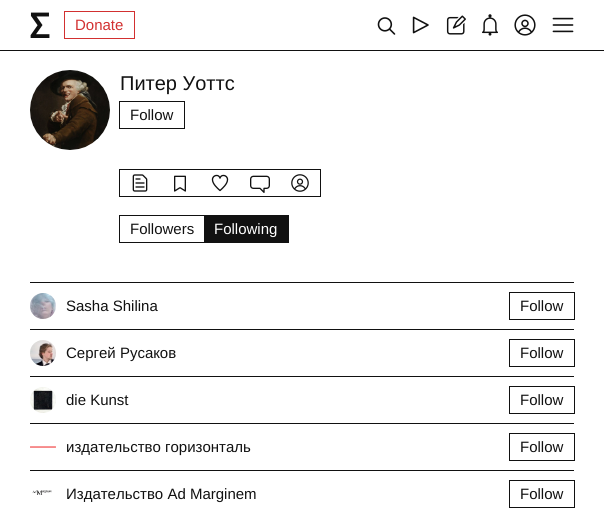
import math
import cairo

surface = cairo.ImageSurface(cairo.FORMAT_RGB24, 604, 512)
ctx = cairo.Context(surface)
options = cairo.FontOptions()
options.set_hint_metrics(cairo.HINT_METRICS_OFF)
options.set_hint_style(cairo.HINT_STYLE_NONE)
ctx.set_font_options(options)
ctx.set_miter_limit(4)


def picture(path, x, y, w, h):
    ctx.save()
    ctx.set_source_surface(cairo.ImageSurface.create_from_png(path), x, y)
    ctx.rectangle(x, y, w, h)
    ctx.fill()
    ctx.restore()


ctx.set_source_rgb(1, 1, 1)
ctx.paint()
ctx.set_source_rgb(0.067, 0.067, 0.067)
ctx.rectangle(0, 50, 604, 1)
ctx.fill()
picture("img1.png", 30, 12, 20, 26)
ctx.rectangle(64.5, 11.5, 70, 27)
ctx.set_source_rgb(0.824, 0.188, 0.188)
ctx.set_line_width(1)
ctx.stroke()
ctx.select_font_face("Liberation Sans")
ctx.set_font_size(15)
ctx.move_to(75, 30)
ctx.show_text("Donate")
picture("img2.png", 377, 17, 19, 18)
picture("img3.png", 412, 16, 17, 18)
picture("img4.png", 446, 15, 20, 20)
picture("img5.png", 482, 14, 16, 22)
picture("img6.png", 514, 14, 22, 22)
picture("img7.png", 552, 17, 22, 16)
picture("img8.png", 30, 70, 80, 80)
ctx.set_font_size(20)
ctx.set_source_rgb(0.067, 0.067, 0.067)
ctx.move_to(120, 90)
ctx.show_text("Питер Уоттс")
ctx.rectangle(119.5, 101.5, 65, 27)
ctx.stroke()
ctx.set_font_size(15)
ctx.move_to(130, 120)
ctx.show_text("Follow")
ctx.rectangle(119.5, 169.5, 201, 27)
ctx.stroke()
picture("img9.png", 132, 174, 16, 18)
picture("img10.png", 174, 175, 12, 17)
picture("img11.png", 211, 174, 18, 18)
picture("img12.png", 250, 175, 20, 18)
picture("img13.png", 291, 174, 18, 18)
ctx.rectangle(119.5, 215.5, 169, 27)
ctx.stroke()
ctx.move_to(130, 234)
ctx.show_text("Followers")
ctx.rectangle(204, 216, 84, 26)
ctx.fill()
ctx.set_source_rgb(1, 1, 1)
ctx.move_to(214, 234)
ctx.show_text("Following")
ctx.set_source_rgb(0.067, 0.067, 0.067)
ctx.rectangle(30, 282, 544, 1)
ctx.fill()
ctx.rectangle(30, 329, 544, 1)
ctx.fill()
picture("img14.png", 30, 293, 26, 26)
ctx.move_to(66, 311)
ctx.show_text("Sasha Shilina")
ctx.rectangle(509.5, 292.5, 65, 27)
ctx.stroke()
ctx.move_to(520, 311)
ctx.show_text("Follow")
ctx.rectangle(30, 376, 544, 1)
ctx.fill()
picture("img15.png", 30, 340, 26, 26)
ctx.move_to(66, 358)
ctx.show_text("Сергей Русаков")
ctx.rectangle(509.5, 339.5, 65, 27)
ctx.stroke()
ctx.move_to(520, 358)
ctx.show_text("Follow")
ctx.rectangle(30, 423, 544, 1)
ctx.fill()
picture("img16.png", 30, 387, 26, 26)
ctx.move_to(66, 405)
ctx.show_text("die Kunst")
ctx.rectangle(509.5, 386.5, 65, 27)
ctx.stroke()
ctx.move_to(520, 405)
ctx.show_text("Follow")
ctx.rectangle(30, 470, 544, 1)
ctx.fill()
picture("img17.png", 30, 446, 26, 2)
ctx.move_to(66, 452)
ctx.show_text("издательство горизонталь")
ctx.rectangle(509.5, 433.5, 65, 27)
ctx.stroke()
ctx.move_to(520, 452)
ctx.show_text("Follow")
picture("img18.png", 32, 490, 20, 5)
ctx.move_to(66, 499)
ctx.show_text("Издательство Ad Marginem")
ctx.rectangle(509.5, 480.5, 65, 27)
ctx.stroke()
ctx.move_to(520, 499)
ctx.show_text("Follow")
surface.write_to_png("page.png")
